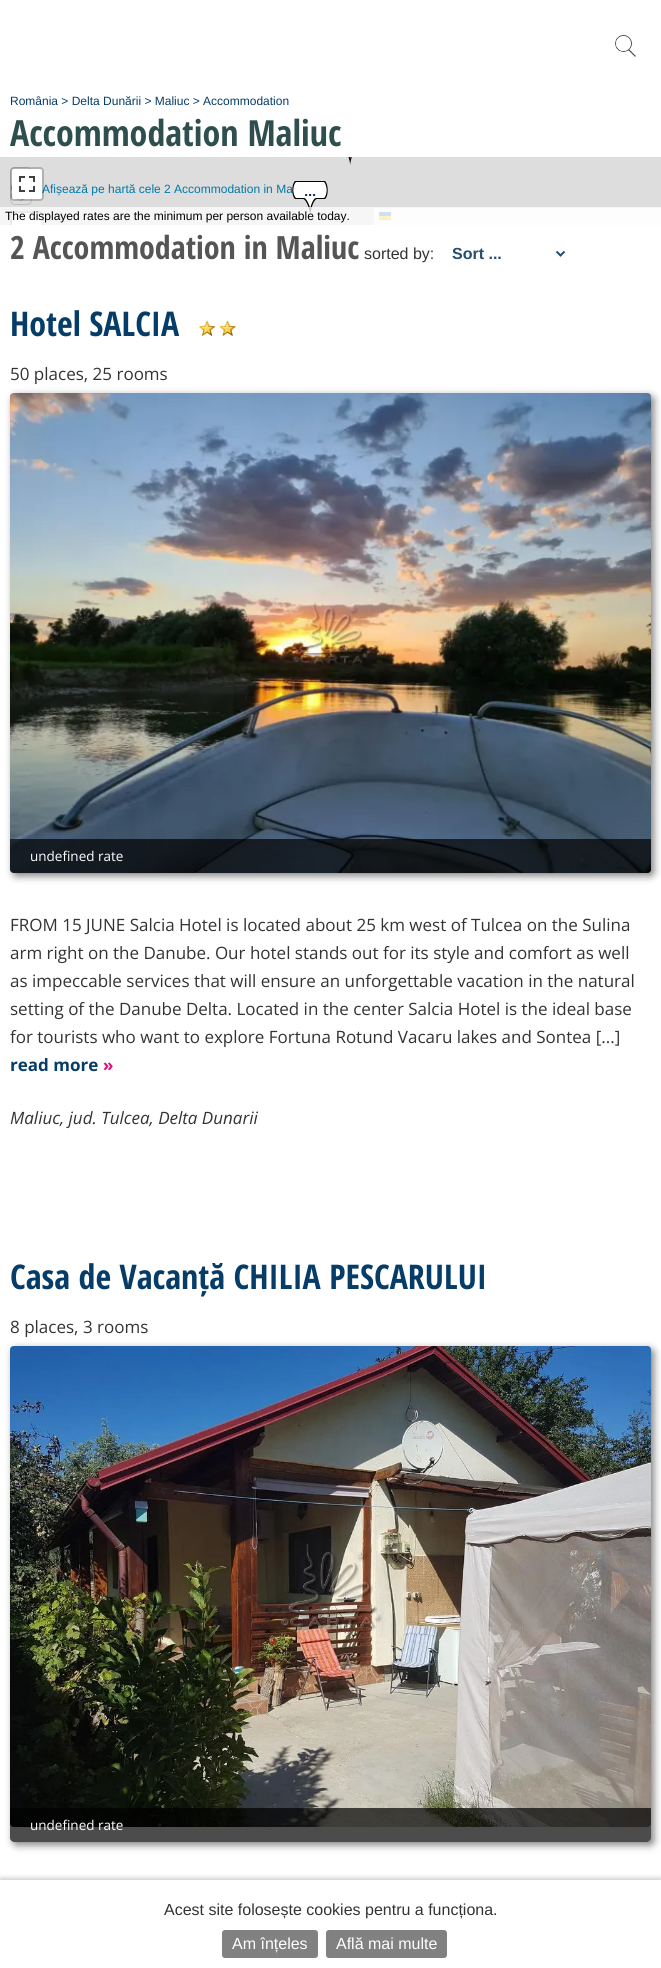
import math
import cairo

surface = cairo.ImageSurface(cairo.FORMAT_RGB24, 661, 1968)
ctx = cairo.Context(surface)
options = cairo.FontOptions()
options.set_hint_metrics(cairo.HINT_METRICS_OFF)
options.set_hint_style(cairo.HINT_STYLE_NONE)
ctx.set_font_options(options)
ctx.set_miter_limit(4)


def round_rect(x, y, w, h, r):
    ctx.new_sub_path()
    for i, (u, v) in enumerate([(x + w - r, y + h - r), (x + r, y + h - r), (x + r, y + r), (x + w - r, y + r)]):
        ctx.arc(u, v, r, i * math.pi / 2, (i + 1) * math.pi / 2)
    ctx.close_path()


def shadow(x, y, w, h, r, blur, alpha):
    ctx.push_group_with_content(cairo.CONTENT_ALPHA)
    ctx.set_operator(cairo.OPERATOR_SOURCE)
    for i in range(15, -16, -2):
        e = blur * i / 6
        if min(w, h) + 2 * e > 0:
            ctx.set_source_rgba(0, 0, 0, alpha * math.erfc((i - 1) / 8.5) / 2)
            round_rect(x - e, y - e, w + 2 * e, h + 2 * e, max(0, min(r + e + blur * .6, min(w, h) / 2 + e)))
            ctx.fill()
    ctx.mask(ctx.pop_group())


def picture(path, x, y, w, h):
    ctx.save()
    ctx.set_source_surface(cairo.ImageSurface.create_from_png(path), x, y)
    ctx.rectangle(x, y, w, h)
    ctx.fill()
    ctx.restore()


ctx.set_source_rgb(1, 1, 1)
ctx.paint()
picture("img1.png", 615, 34, 21, 23)
ctx.select_font_face("Liberation Sans")
ctx.set_font_size(12)
ctx.set_source_rgb(0.027, 0.235, 0.408)
ctx.move_to(10, 105)
ctx.show_text("România > Delta Dunării > Maliuc > Accommodation")
ctx.select_font_face("Open Sans Condensed", cairo.FONT_SLANT_NORMAL, cairo.FONT_WEIGHT_BOLD)
ctx.set_font_size(36)
ctx.set_source_rgb(0.184, 0.31, 0.31)
ctx.move_to(10, 146)
ctx.show_text("Accommodation Maliuc")
ctx.set_source_rgb(0.867, 0.867, 0.867)
ctx.rectangle(0, 157, 661, 68)
ctx.fill()
picture("img2.png", 348, 157, 4, 8)
ctx.select_font_face("Liberation Sans")
ctx.set_font_size(12)
ctx.set_source_rgb(0, 0.471, 0.659)
ctx.move_to(42, 193)
ctx.show_text("Afișează pe hartă cele 2 Accommodation in Ma")
picture("img3.png", 292, 181, 36, 34)
round_rect(10.5, 167.5, 21, 37, 4.5)
ctx.set_source_rgb(0.753, 0.753, 0.753)
ctx.set_line_width(1)
ctx.stroke()
picture("img5.png", 11, 183, 14, 18)
round_rect(11, 168, 32, 32, 3)
ctx.set_source_rgba(0, 0, 0, 0.2)
ctx.set_line_width(2)
ctx.stroke()
ctx.set_source_rgb(1, 1, 1)
round_rect(12, 169, 30, 30, 2)
ctx.fill()
picture("img4.png", 19, 176, 16, 16)
ctx.select_font_face("Open Sans Condensed", cairo.FONT_SLANT_NORMAL, cairo.FONT_WEIGHT_BOLD)
ctx.set_font_size(32)
ctx.set_source_rgb(0.333, 0.333, 0.333)
ctx.move_to(10, 259)
ctx.show_text("2 Accommodation in Maliuc")
ctx.save()
ctx.rectangle(0, 157, 661, 68)
ctx.clip()
round_rect(11, 212, 32, 63, 3)
ctx.set_source_rgb(0.694, 0.694, 0.694)
ctx.stroke()
ctx.restore()
ctx.set_source_rgb(1, 1, 1)
ctx.new_path()
ctx.move_to(14, 213)
ctx.line_to(40, 213)
ctx.curve_to(41, 213, 42, 214, 42, 215)
ctx.line_to(42, 225)
ctx.line_to(12, 225)
ctx.line_to(12, 215)
ctx.curve_to(12, 214, 13, 213, 14, 213)
ctx.close_path()
ctx.fill()
ctx.set_source_rgb(0.973, 0.973, 0.973)
ctx.rectangle(374, 208, 287, 17)
ctx.fill()
ctx.set_source_rgb(0.298, 0.482, 0.882)
ctx.rectangle(379, 212, 12, 4)
ctx.fill()
ctx.set_source_rgb(1, 0.835, 0)
ctx.rectangle(379, 216, 12, 3)
ctx.fill()
ctx.set_source_rgb(0.878, 0.737, 0)
ctx.rectangle(379, 219, 12, 1)
ctx.fill()
ctx.set_source_rgba(1, 1, 1, 0.75)
ctx.rectangle(0, 207, 661, 18)
ctx.fill()
ctx.select_font_face("Liberation Sans")
ctx.set_font_size(12)
ctx.set_source_rgb(0, 0, 0)
ctx.move_to(5, 220)
ctx.show_text("The displayed rates are the minimum per person available today.")
ctx.set_font_size(16)
ctx.set_source_rgb(0.2, 0.2, 0.2)
ctx.move_to(364, 259)
ctx.show_text("sorted by:")
ctx.new_path()
ctx.move_to(556.5, 251.5)
ctx.line_to(560.5, 255.5)
ctx.line_to(564.5, 251.5)
ctx.set_source_rgb(0.141, 0.306, 0.439)
ctx.stroke()
ctx.select_font_face("Liberation Sans", cairo.FONT_SLANT_NORMAL, cairo.FONT_WEIGHT_BOLD)
ctx.move_to(452, 259)
ctx.show_text("Sort ...")
ctx.select_font_face("Open Sans Condensed", cairo.FONT_SLANT_NORMAL, cairo.FONT_WEIGHT_BOLD)
ctx.set_font_size(34)
ctx.set_source_rgb(0.027, 0.235, 0.408)
ctx.move_to(10, 336)
ctx.show_text("Hotel SALCIA")
picture("img6.png", 198, 320, 39, 16)
ctx.select_font_face("Open Sans")
ctx.set_font_size(17)
ctx.set_source_rgb(0.2, 0.2, 0.2)
ctx.move_to(10, 380)
ctx.show_text("50 places, 25 rooms")
ctx.set_source_rgb(0.506, 0.506, 0.506)
shadow(13, 396, 641, 480, 4, 4, 1)
picture("img7.png", 10, 393, 641, 480)
ctx.set_source_rgba(0, 0, 0, 0.7)
ctx.new_path()
ctx.move_to(10, 839)
ctx.line_to(651, 839)
ctx.line_to(651, 869)
ctx.curve_to(651, 871, 649, 873, 647, 873)
ctx.line_to(14, 873)
ctx.curve_to(12, 873, 10, 871, 10, 869)
ctx.close_path()
ctx.fill()
ctx.set_font_size(13.5)
ctx.set_source_rgb(1, 1, 1)
ctx.move_to(30, 861)
ctx.show_text("undefined rate")
ctx.set_font_size(17)
ctx.set_source_rgb(0.2, 0.2, 0.2)
ctx.move_to(10, 931)
ctx.show_text("FROM 15 JUNE Salcia Hotel is located about 25 km west of Tulcea on the Sulina")
ctx.move_to(10, 959)
ctx.show_text("arm right on the Danube. Our hotel stands out for its style and comfort as well")
ctx.move_to(10, 987)
ctx.show_text("as impeccable services that will ensure an unforgettable vacation in the natural")
ctx.move_to(10, 1015)
ctx.show_text("setting of the Danube Delta. Located in the center Salcia Hotel is the ideal base")
ctx.move_to(10, 1043)
ctx.show_text("for tourists who want to explore Fortuna Rotund Vacaru lakes and Sontea [...]")
ctx.select_font_face("Open Sans", cairo.FONT_SLANT_NORMAL, cairo.FONT_WEIGHT_BOLD)
ctx.set_source_rgb(0.027, 0.235, 0.408)
ctx.move_to(10, 1071)
ctx.show_text("read more")
ctx.set_source_rgb(0.871, 0.059, 0.478)
ctx.move_to(103, 1071)
ctx.show_text("»")
ctx.select_font_face("Open Sans", cairo.FONT_SLANT_ITALIC)
ctx.set_source_rgb(0.2, 0.2, 0.2)
ctx.move_to(10, 1124)
ctx.show_text("Maliuc, jud. Tulcea, Delta Dunarii")
ctx.select_font_face("Open Sans Condensed", cairo.FONT_SLANT_NORMAL, cairo.FONT_WEIGHT_BOLD)
ctx.set_font_size(34)
ctx.set_source_rgb(0.027, 0.235, 0.408)
ctx.move_to(10, 1289)
ctx.show_text("Casa de Vacanță CHILIA PESCARULUI")
ctx.select_font_face("Open Sans")
ctx.set_font_size(17)
ctx.set_source_rgb(0.2, 0.2, 0.2)
ctx.move_to(10, 1333)
ctx.show_text("8 places, 3 rooms")
ctx.save()
ctx.set_fill_rule(cairo.FILL_RULE_EVEN_ODD)
ctx.new_path()
ctx.move_to(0, 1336)
ctx.line_to(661, 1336)
ctx.line_to(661, 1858)
ctx.line_to(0, 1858)
ctx.close_path()
ctx.move_to(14, 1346)
ctx.line_to(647, 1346)
ctx.curve_to(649, 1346, 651, 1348, 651, 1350)
ctx.line_to(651, 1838)
ctx.curve_to(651, 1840, 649, 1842, 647, 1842)
ctx.line_to(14, 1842)
ctx.curve_to(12, 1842, 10, 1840, 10, 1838)
ctx.line_to(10, 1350)
ctx.curve_to(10, 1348, 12, 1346, 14, 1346)
ctx.close_path()
ctx.clip()
ctx.set_source_rgb(0.506, 0.506, 0.506)
shadow(13, 1349, 641, 496, 4, 4, 1)
ctx.restore()
picture("img8.png", 10, 1346, 641, 481)
ctx.set_source_rgba(0, 0, 0, 0.7)
ctx.new_path()
ctx.move_to(10, 1808)
ctx.line_to(651, 1808)
ctx.line_to(651, 1838)
ctx.curve_to(651, 1840, 649, 1842, 647, 1842)
ctx.line_to(14, 1842)
ctx.curve_to(12, 1842, 10, 1840, 10, 1838)
ctx.close_path()
ctx.fill()
ctx.set_font_size(13.5)
ctx.set_source_rgb(1, 1, 1)
ctx.move_to(30, 1830)
ctx.show_text("undefined rate")
ctx.set_source_rgb(0, 0, 0)
shadow(0, 1878, 661, 88, 0, 2.5, 0.2)
ctx.set_source_rgb(1, 1, 1)
ctx.rectangle(0, 1880, 661, 88)
ctx.fill()
ctx.select_font_face("Liberation Sans")
ctx.set_font_size(16)
ctx.set_source_rgb(0.2, 0.2, 0.2)
ctx.move_to(164, 1915)
ctx.show_text("Acest site folosește cookies pentru a funcționa.")
ctx.set_source_rgb(0.506, 0.506, 0.506)
round_rect(222, 1930, 96, 28, 3)
ctx.fill()
ctx.set_source_rgb(1, 1, 1)
ctx.move_to(232, 1949)
ctx.show_text("Am înțeles")
ctx.set_source_rgb(0.506, 0.506, 0.506)
round_rect(326, 1930, 121, 28, 3)
ctx.fill()
ctx.set_source_rgb(1, 1, 1)
ctx.move_to(336, 1949)
ctx.show_text("Află mai multe")
surface.write_to_png("page.png")
